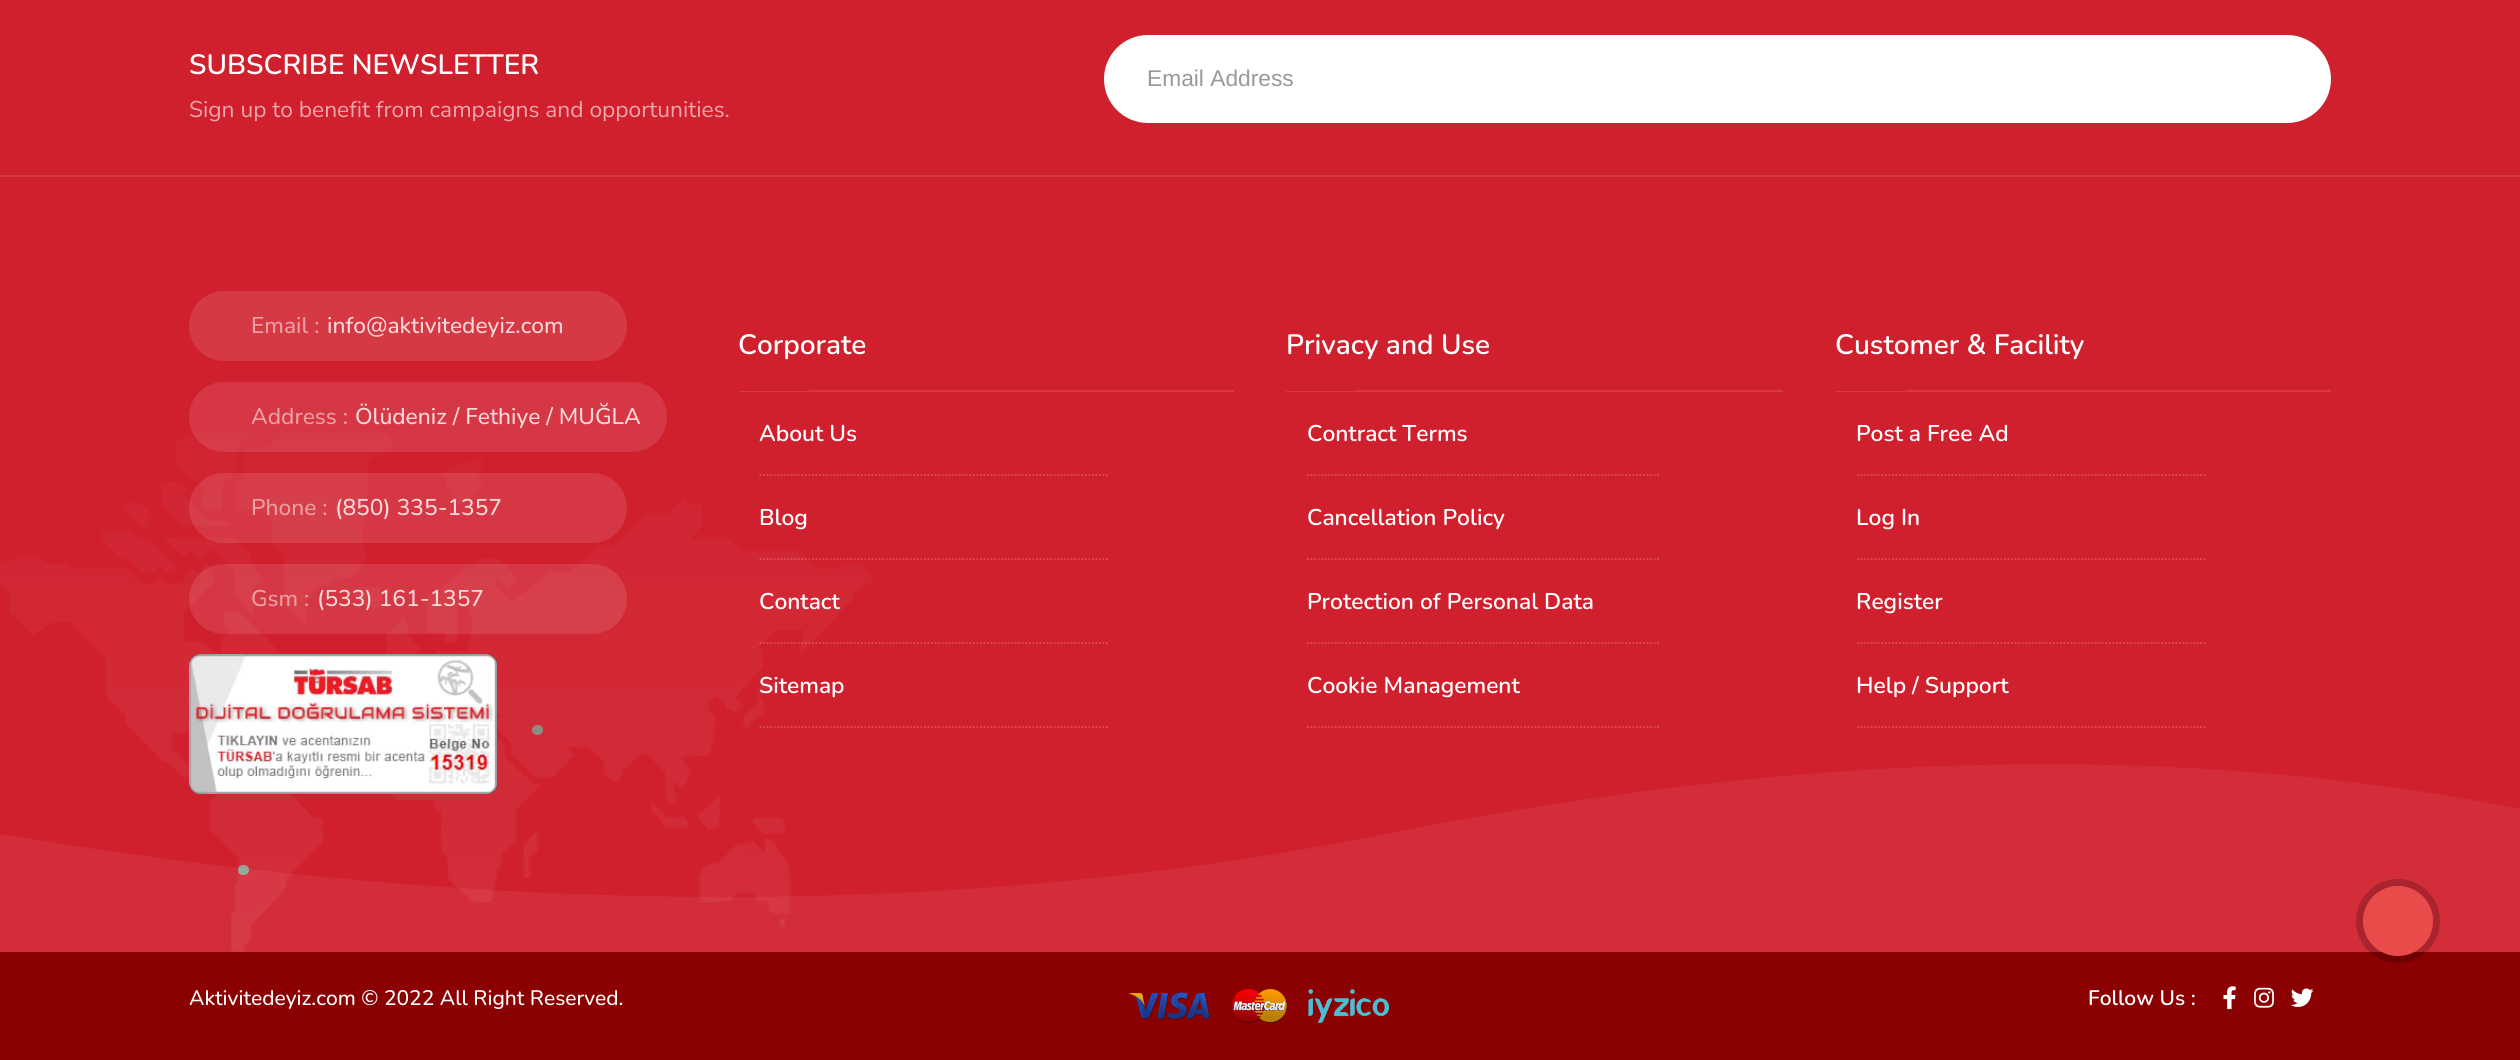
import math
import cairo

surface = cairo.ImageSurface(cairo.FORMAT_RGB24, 2520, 1060)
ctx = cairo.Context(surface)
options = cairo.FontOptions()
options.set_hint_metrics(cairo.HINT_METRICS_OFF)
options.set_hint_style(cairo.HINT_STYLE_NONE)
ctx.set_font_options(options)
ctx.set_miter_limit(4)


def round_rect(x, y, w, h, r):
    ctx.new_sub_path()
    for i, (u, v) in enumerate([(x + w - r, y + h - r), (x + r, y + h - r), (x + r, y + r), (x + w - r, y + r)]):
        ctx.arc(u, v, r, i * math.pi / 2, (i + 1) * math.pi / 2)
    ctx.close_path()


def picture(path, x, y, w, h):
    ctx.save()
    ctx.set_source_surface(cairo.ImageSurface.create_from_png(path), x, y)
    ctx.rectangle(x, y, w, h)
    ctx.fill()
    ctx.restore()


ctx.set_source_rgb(0.816, 0.125, 0.176)
ctx.paint()
ctx.set_source_rgb(0.835, 0.212, 0.259)
ctx.rectangle(0, 175, 2520, 2)
ctx.fill()
ctx.select_font_face("Nunito SemiBold")
ctx.set_font_size(28)
ctx.set_source_rgb(1, 1, 1)
ctx.move_to(189, 74)
ctx.show_text("SUBSCRIBE NEWSLETTER")
ctx.select_font_face("Nunito")
ctx.set_font_size(22.75)
ctx.set_source_rgb(0.925, 0.651, 0.671)
ctx.move_to(189, 117)
ctx.show_text("Sign up to benefit from campaigns and opportunities.")
ctx.set_source_rgb(1, 1, 1)
round_rect(1104, 35, 1227, 88, 44)
ctx.fill()
ctx.select_font_face("Liberation Sans")
ctx.set_source_rgb(0.6, 0.6, 0.6)
ctx.move_to(1147, 86)
ctx.show_text("Email Address")
ctx.set_source_rgb(0.835, 0.224, 0.267)
round_rect(189, 291, 438, 70, 35)
ctx.fill()
ctx.select_font_face("Nunito Medium")
ctx.set_source_rgb(0.918, 0.62, 0.639)
ctx.move_to(251, 333)
ctx.show_text("Email :")
ctx.set_source_rgb(0.969, 0.851, 0.859)
ctx.move_to(327, 333)
ctx.show_text("info@aktivitedeyiz.com")
picture("img2.png", 0, 432, 874, 520)
ctx.set_source_rgba(1, 1, 1, 0.11)
round_rect(189, 382, 478, 70, 35)
ctx.fill()
ctx.set_source_rgb(0.918, 0.62, 0.639)
ctx.move_to(251, 424)
ctx.show_text("Address :")
ctx.set_source_rgb(0.969, 0.851, 0.859)
ctx.move_to(355, 424)
ctx.show_text("Ölüdeniz / Fethiye / MUĞLA")
ctx.set_source_rgba(1, 1, 1, 0.11)
round_rect(189, 473, 438, 70, 35)
ctx.fill()
ctx.set_source_rgb(0.918, 0.62, 0.639)
ctx.move_to(251, 515)
ctx.show_text("Phone :")
ctx.set_source_rgb(0.969, 0.851, 0.859)
ctx.move_to(335, 515)
ctx.show_text("(850) 335-1357")
ctx.set_source_rgba(1, 1, 1, 0.11)
round_rect(189, 564, 438, 70, 35)
ctx.fill()
ctx.set_source_rgb(0.918, 0.62, 0.639)
ctx.move_to(251, 606)
ctx.show_text("Gsm :")
ctx.set_source_rgb(0.969, 0.851, 0.859)
ctx.move_to(317, 606)
ctx.show_text("(533) 161-1357")
ctx.set_source_rgba(1, 1, 1, 0.24)
round_rect(238, 865, 11, 10, 5)
ctx.fill()
ctx.set_source_rgba(0.369, 0.812, 0.694, 0.6)
round_rect(238, 865, 11, 10, 5)
ctx.fill()
ctx.set_source_rgba(1, 1, 1, 0.06)
ctx.new_path()
ctx.move_to(0, 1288)
ctx.line_to(0, 834)
ctx.curve_to(504, 918, 966, 918, 1386, 834)
ctx.curve_to(1806, 750, 2184, 742, 2520, 809)
ctx.line_to(2520, 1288)
ctx.close_path()
ctx.fill()
picture("img1.png", 189, 654, 308, 140)
ctx.set_source_rgb(0.835, 0.224, 0.267)
ctx.rectangle(739, 390, 495, 2)
ctx.fill()
ctx.select_font_face("Nunito SemiBold")
ctx.set_font_size(28)
ctx.set_source_rgb(1, 1, 1)
ctx.move_to(738, 354)
ctx.show_text("Corporate")
ctx.set_source_rgb(0.816, 0.125, 0.176)
ctx.rectangle(739, 390, 70, 1)
ctx.fill()
ctx.set_font_size(22.75)
ctx.set_source_rgb(1, 1, 1)
ctx.move_to(759, 441)
ctx.show_text("About Us")
ctx.new_path()
ctx.move_to(759.5, 475)
ctx.line_to(1109.5, 475)
ctx.set_source_rgb(0.855, 0.31, 0.349)
ctx.set_line_width(1.8)
ctx.set_dash([1.75, 1.75])
ctx.stroke()
ctx.set_source_rgb(1, 1, 1)
ctx.move_to(759, 525)
ctx.show_text("Blog")
ctx.new_path()
ctx.move_to(759.5, 559)
ctx.line_to(1109.5, 559)
ctx.set_source_rgba(1, 1, 1, 0.21)
ctx.stroke()
ctx.set_source_rgb(1, 1, 1)
ctx.move_to(759, 609)
ctx.show_text("Contact")
ctx.new_path()
ctx.move_to(759.5, 643)
ctx.line_to(1109.5, 643)
ctx.set_source_rgba(1, 1, 1, 0.21)
ctx.stroke()
ctx.set_source_rgb(1, 1, 1)
ctx.move_to(759, 693)
ctx.show_text("Sitemap")
ctx.new_path()
ctx.move_to(759.5, 727)
ctx.line_to(1109.5, 727)
ctx.set_source_rgb(0.855, 0.31, 0.349)
ctx.stroke()
ctx.set_source_rgb(0.835, 0.224, 0.267)
ctx.rectangle(1286, 390, 497, 2)
ctx.fill()
ctx.set_font_size(28)
ctx.set_source_rgb(1, 1, 1)
ctx.move_to(1286, 354)
ctx.show_text("Privacy and Use")
ctx.set_source_rgb(0.816, 0.125, 0.176)
ctx.rectangle(1286, 390, 70, 1)
ctx.fill()
ctx.set_font_size(22.75)
ctx.set_source_rgb(1, 1, 1)
ctx.move_to(1307, 441)
ctx.show_text("Contract Terms")
ctx.new_path()
ctx.move_to(1307, 475)
ctx.line_to(1659, 475)
ctx.set_source_rgb(0.855, 0.31, 0.349)
ctx.stroke()
ctx.set_source_rgb(1, 1, 1)
ctx.move_to(1307, 525)
ctx.show_text("Cancellation Policy")
ctx.new_path()
ctx.move_to(1307, 559)
ctx.line_to(1659, 559)
ctx.set_source_rgb(0.855, 0.31, 0.349)
ctx.stroke()
ctx.set_source_rgb(1, 1, 1)
ctx.move_to(1307, 609)
ctx.show_text("Protection of Personal Data")
ctx.new_path()
ctx.move_to(1307, 643)
ctx.line_to(1659, 643)
ctx.set_source_rgb(0.855, 0.31, 0.349)
ctx.stroke()
ctx.set_source_rgb(1, 1, 1)
ctx.move_to(1307, 693)
ctx.show_text("Cookie Management")
ctx.new_path()
ctx.move_to(1307, 727)
ctx.line_to(1659, 727)
ctx.set_source_rgb(0.855, 0.31, 0.349)
ctx.stroke()
ctx.set_source_rgb(0.835, 0.224, 0.267)
ctx.rectangle(1836, 390, 495, 2)
ctx.fill()
ctx.set_font_size(28)
ctx.set_source_rgb(1, 1, 1)
ctx.move_to(1835, 354)
ctx.show_text("Customer & Facility")
ctx.set_source_rgb(0.816, 0.125, 0.176)
ctx.rectangle(1836, 390, 70, 1)
ctx.fill()
ctx.set_font_size(22.75)
ctx.set_source_rgb(1, 1, 1)
ctx.move_to(1856, 441)
ctx.show_text("Post a Free Ad")
ctx.new_path()
ctx.move_to(1857, 475)
ctx.line_to(2207, 475)
ctx.set_source_rgb(0.855, 0.31, 0.349)
ctx.stroke()
ctx.set_source_rgb(1, 1, 1)
ctx.move_to(1856, 525)
ctx.show_text("Log In")
ctx.new_path()
ctx.move_to(1857, 559)
ctx.line_to(2207, 559)
ctx.set_source_rgb(0.855, 0.31, 0.349)
ctx.stroke()
ctx.set_source_rgb(1, 1, 1)
ctx.move_to(1856, 609)
ctx.show_text("Register")
ctx.new_path()
ctx.move_to(1857, 643)
ctx.line_to(2207, 643)
ctx.set_source_rgb(0.855, 0.31, 0.349)
ctx.stroke()
ctx.set_source_rgb(1, 1, 1)
ctx.move_to(1856, 693)
ctx.show_text("Help / Support")
ctx.new_path()
ctx.move_to(1857, 727)
ctx.line_to(2207, 727)
ctx.set_source_rgb(0.855, 0.31, 0.349)
ctx.stroke()
ctx.set_source_rgb(0.549, 0.553, 0.502)
round_rect(532, 725, 11, 10, 5)
ctx.fill()
ctx.set_source_rgb(0.545, 0, 0)
ctx.rectangle(0, 952, 2520, 108)
ctx.fill()
ctx.select_font_face("Nunito Medium")
ctx.set_font_size(21)
ctx.set_source_rgb(1, 1, 1)
ctx.move_to(189, 1005)
ctx.show_text("Aktivitedeyiz.com © 2022 All Right Reserved.")
picture("img3.png", 1128, 989, 261, 35)
ctx.select_font_face("Nunito SemiBold")
ctx.move_to(2088, 1005)
ctx.show_text("Follow Us :")
picture("img4.png", 2223, 986, 13, 24)
picture("img5.png", 2254, 987, 20, 21)
picture("img6.png", 2291, 988, 23, 19)
ctx.arc(2398, 921, 38.5, 0, 2 * math.pi)
ctx.set_source_rgba(0, 0, 0, 0.2)
ctx.set_line_width(7)
ctx.set_dash([])
ctx.stroke()
ctx.set_source_rgb(0.914, 0.294, 0.294)
ctx.arc(2398, 921, 35, 0, 2 * math.pi)
ctx.fill()
surface.write_to_png("page.png")
